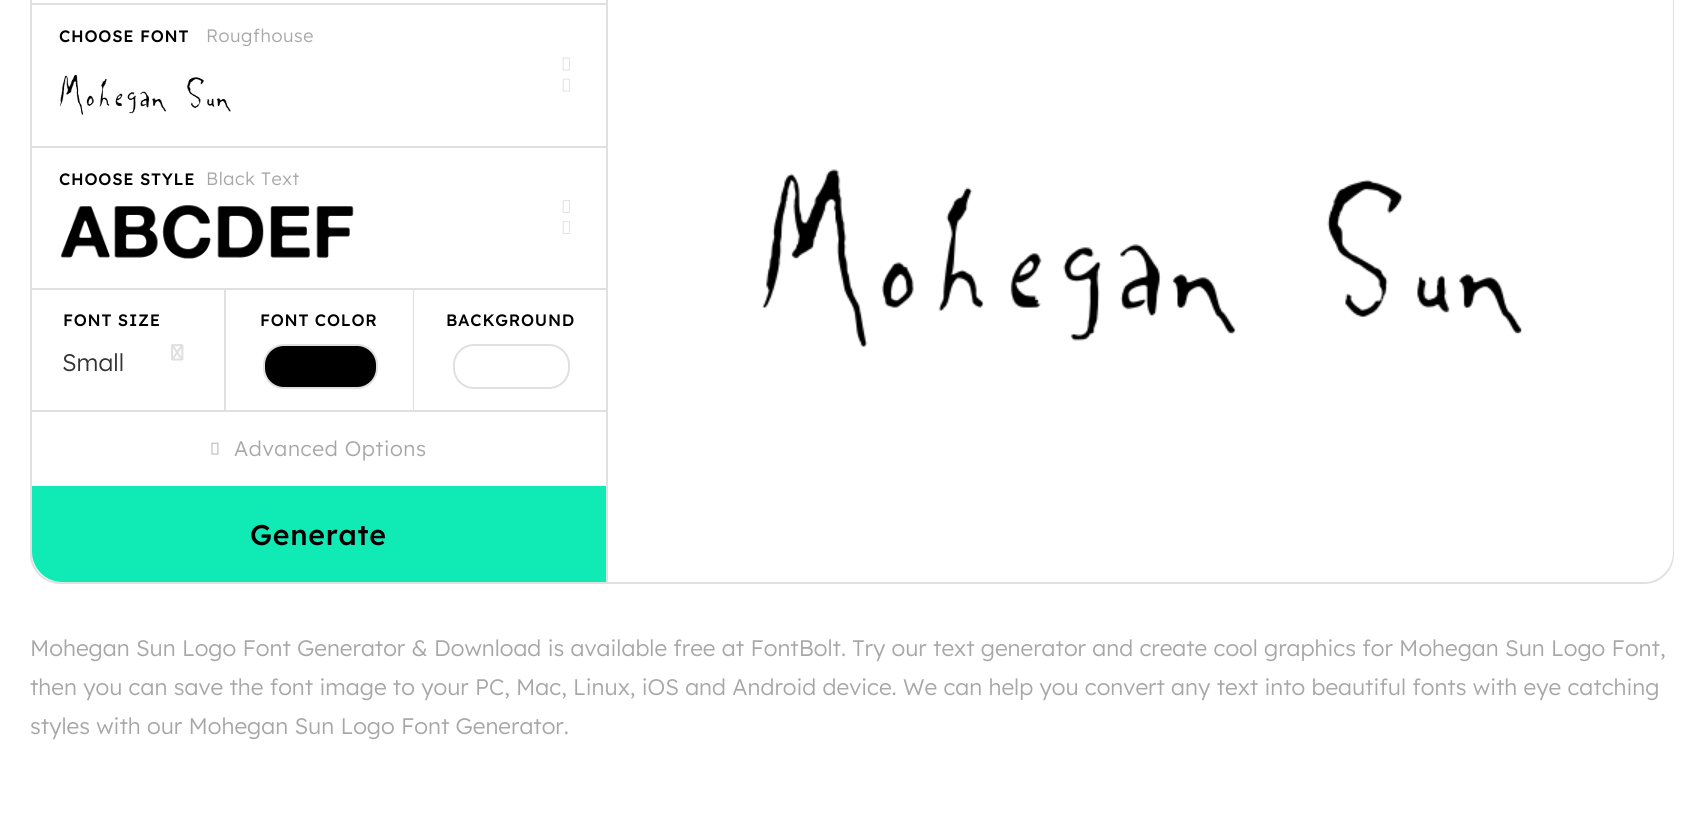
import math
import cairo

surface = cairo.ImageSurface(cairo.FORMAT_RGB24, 1703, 822)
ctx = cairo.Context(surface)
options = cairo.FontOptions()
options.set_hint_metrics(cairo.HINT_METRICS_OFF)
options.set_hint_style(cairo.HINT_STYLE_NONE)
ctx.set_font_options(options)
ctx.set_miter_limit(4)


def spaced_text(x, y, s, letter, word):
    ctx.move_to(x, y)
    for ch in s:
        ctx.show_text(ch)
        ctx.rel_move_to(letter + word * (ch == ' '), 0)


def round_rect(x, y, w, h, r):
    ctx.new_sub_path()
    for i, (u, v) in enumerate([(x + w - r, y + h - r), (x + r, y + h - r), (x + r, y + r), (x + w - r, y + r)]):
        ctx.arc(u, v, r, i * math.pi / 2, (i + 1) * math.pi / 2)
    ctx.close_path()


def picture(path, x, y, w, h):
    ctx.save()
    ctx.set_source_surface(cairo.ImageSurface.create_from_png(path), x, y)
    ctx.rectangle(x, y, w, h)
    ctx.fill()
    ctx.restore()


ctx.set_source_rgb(1, 1, 1)
ctx.paint()
round_rect(31, -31, 1642, 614, 29)
ctx.set_source_rgb(0.878, 0.878, 0.878)
ctx.stroke()
ctx.rectangle(32, 3, 574, 2)
ctx.fill()
ctx.select_font_face("Lexend Deca Medium")
ctx.set_font_size(16.5)
ctx.set_source_rgb(0, 0, 0)
spaced_text(59, 42, "CHOOSE FONT", 0.75, 0)
ctx.select_font_face("Lexend Deca Light")
ctx.set_font_size(18)
ctx.set_source_rgb(0.655, 0.655, 0.655)
spaced_text(206, 42, "Rougfhouse", 0.6, 0)
picture("img1.png", 59, 74, 172, 41)
picture("img2.png", 562, 57, 8, 14)
picture("img2.png", 562, 78, 8, 14)
ctx.set_source_rgb(0.878, 0.878, 0.878)
ctx.rectangle(32, 146, 574, 2)
ctx.fill()
ctx.select_font_face("Lexend Deca Medium")
ctx.set_font_size(16.5)
ctx.set_source_rgb(0, 0, 0)
spaced_text(59, 185, "CHOOSE STYLE", 0.75, 0)
ctx.select_font_face("Lexend Deca Light")
ctx.set_font_size(18)
ctx.set_source_rgb(0.655, 0.655, 0.655)
spaced_text(206, 185, "Black Text", 0.6, 0)
picture("img3.png", 60, 204, 294, 55)
picture("img4.png", 562, 200, 8, 13)
picture("img4.png", 562, 221, 8, 13)
ctx.set_source_rgb(0.878, 0.878, 0.878)
ctx.rectangle(32, 288, 574, 2)
ctx.fill()
ctx.select_font_face("Lexend Deca Medium")
ctx.set_font_size(16.5)
ctx.set_source_rgb(0, 0, 0)
spaced_text(63, 326, "FONT SIZE", 0.75, 0)
ctx.select_font_face("Lexend Deca Light")
ctx.set_font_size(24)
ctx.set_source_rgb(0.2, 0.2, 0.2)
ctx.move_to(62, 371)
ctx.show_text("Small")
picture("img5.png", 171, 344, 13, 17)
ctx.set_source_rgb(0.878, 0.878, 0.878)
ctx.rectangle(413, 290, 1, 120)
ctx.fill()
ctx.rectangle(224, 290, 2, 120)
ctx.fill()
ctx.select_font_face("Lexend Deca Medium")
ctx.set_font_size(16.5)
ctx.set_source_rgb(0, 0, 0)
spaced_text(260, 326, "FONT COLOR", 0.75, 0)
round_rect(264, 345, 113, 43, 20)
ctx.fill_preserve()
ctx.set_source_rgb(0.878, 0.878, 0.878)
ctx.stroke()
ctx.set_source_rgb(0, 0, 0)
spaced_text(446, 326, "BACKGROUND", 0.75, 0)
round_rect(454, 345, 115, 43, 20)
ctx.set_source_rgb(0.878, 0.878, 0.878)
ctx.stroke()
ctx.rectangle(32, 410, 574, 2)
ctx.fill()
picture("img6.png", 211, 442, 8, 13)
ctx.select_font_face("Lexend Deca Light")
ctx.set_font_size(21)
ctx.set_source_rgb(0.655, 0.655, 0.655)
spaced_text(234, 456, "Advanced Options", 0.6, 0)
ctx.set_source_rgb(0.063, 0.918, 0.71)
ctx.new_path()
ctx.move_to(32, 486)
ctx.line_to(606, 486)
ctx.line_to(606, 582)
ctx.line_to(62, 582)
ctx.curve_to(45.5, 582, 32, 568.5, 32, 552)
ctx.close_path()
ctx.fill()
ctx.select_font_face("Lexend Deca Medium")
ctx.set_font_size(28.5)
ctx.set_source_rgb(0, 0, 0)
spaced_text(250, 545, "Generate", 0.75, 0)
ctx.set_source_rgb(1, 1, 1)
ctx.new_path()
ctx.move_to(606, -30)
ctx.line_to(1643, -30)
ctx.curve_to(1659.5, -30, 1673, -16.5, 1673, 0)
ctx.line_to(1673, 552)
ctx.curve_to(1673, 568.5, 1659.5, 582, 1643, 582)
ctx.line_to(606, 582)
ctx.close_path()
ctx.fill()
ctx.set_source_rgb(0.878, 0.878, 0.878)
ctx.rectangle(606, 0, 2, 582)
ctx.fill()
picture("img7.png", 762, 169, 760, 178)
ctx.select_font_face("Lexend Deca Light")
ctx.set_font_size(22.5)
ctx.set_source_rgb(0.655, 0.655, 0.655)
ctx.move_to(30, 656)
ctx.show_text("Mohegan Sun Logo Font Generator & Download is available free at FontBolt. Try our text generator and create cool graphics for Mohegan Sun Logo Font,")
ctx.move_to(30, 695)
ctx.show_text("then you can save the font image to your PC, Mac, Linux, iOS and Android device. We can help you convert any text into beautiful fonts with eye catching")
ctx.move_to(30, 734)
ctx.show_text("styles with our Mohegan Sun Logo Font Generator.")
surface.write_to_png("page.png")
